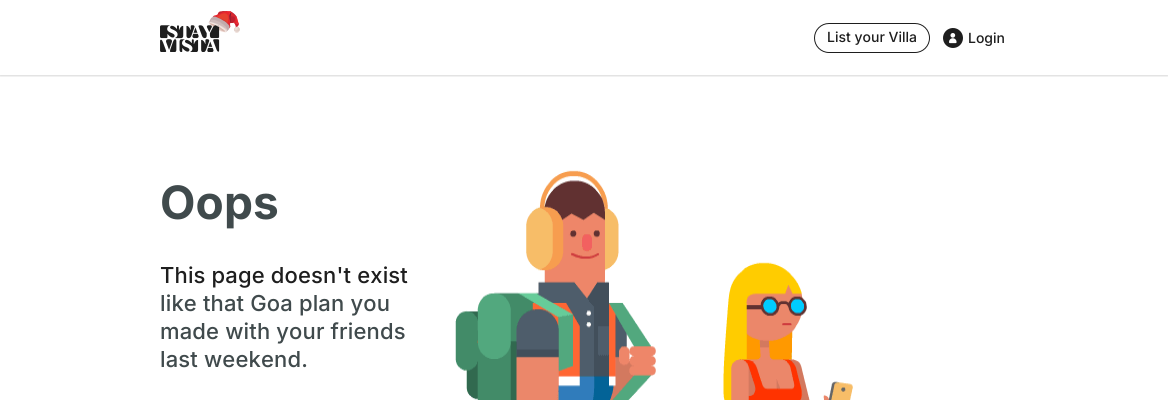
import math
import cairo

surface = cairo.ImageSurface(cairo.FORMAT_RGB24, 1168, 400)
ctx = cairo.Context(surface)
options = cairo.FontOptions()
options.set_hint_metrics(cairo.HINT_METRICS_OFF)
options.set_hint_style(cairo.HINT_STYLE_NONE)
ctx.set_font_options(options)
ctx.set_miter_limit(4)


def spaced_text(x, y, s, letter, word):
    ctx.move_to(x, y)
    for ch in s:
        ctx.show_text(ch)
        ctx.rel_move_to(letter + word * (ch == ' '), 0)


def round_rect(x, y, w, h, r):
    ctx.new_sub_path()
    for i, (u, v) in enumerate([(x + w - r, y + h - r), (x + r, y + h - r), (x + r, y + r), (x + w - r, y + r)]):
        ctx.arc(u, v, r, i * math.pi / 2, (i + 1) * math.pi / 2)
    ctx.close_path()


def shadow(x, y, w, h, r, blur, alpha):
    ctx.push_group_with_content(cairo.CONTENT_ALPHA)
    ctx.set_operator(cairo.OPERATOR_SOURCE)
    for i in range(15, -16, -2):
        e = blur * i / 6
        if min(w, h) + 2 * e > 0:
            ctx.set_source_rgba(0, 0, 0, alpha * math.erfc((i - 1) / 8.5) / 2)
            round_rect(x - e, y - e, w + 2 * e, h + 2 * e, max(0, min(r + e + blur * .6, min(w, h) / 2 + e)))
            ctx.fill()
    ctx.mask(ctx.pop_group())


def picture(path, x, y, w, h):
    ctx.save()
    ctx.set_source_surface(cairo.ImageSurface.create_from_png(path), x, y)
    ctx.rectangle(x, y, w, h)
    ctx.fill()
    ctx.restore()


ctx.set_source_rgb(1, 1, 1)
ctx.paint()
ctx.save()
ctx.rectangle(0, 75, 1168, 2)
ctx.clip()
ctx.set_source_rgb(0, 0, 0)
shadow(0, 1, 1168, 75, 0, 1, 0.16)
ctx.restore()
picture("img1.png", 160, 11, 80, 41)
round_rect(814.5, 23.5, 115, 29, 14.5)
ctx.set_source_rgb(0.118, 0.118, 0.118)
ctx.set_line_width(1)
ctx.stroke()
ctx.select_font_face("Inter Medium")
ctx.set_font_size(14)
ctx.move_to(827, 42)
ctx.show_text("List your Villa")
picture("img2.png", 943, 28, 20, 20)
ctx.move_to(968, 43)
ctx.show_text("Login")
ctx.select_font_face("Inter", cairo.FONT_SLANT_NORMAL, cairo.FONT_WEIGHT_BOLD)
ctx.set_font_size(46)
ctx.set_source_rgb(0.251, 0.29, 0.298)
spaced_text(160, 219, "Oops", 0.15, 0)
ctx.select_font_face("Inter Medium")
ctx.set_font_size(22)
ctx.set_source_rgb(0.118, 0.118, 0.118)
spaced_text(160, 283, "This page doesn't exist", 0.15, 0)
ctx.set_source_rgb(0.251, 0.29, 0.298)
spaced_text(160, 311, "like that Goa plan you", 0.15, 0)
spaced_text(160, 339, "made with your friends", 0.15, 0)
spaced_text(160, 367, "last weekend.", 0.15, 0)
picture("img3.png", 455, 170, 398, 230)
surface.write_to_png("page.png")
